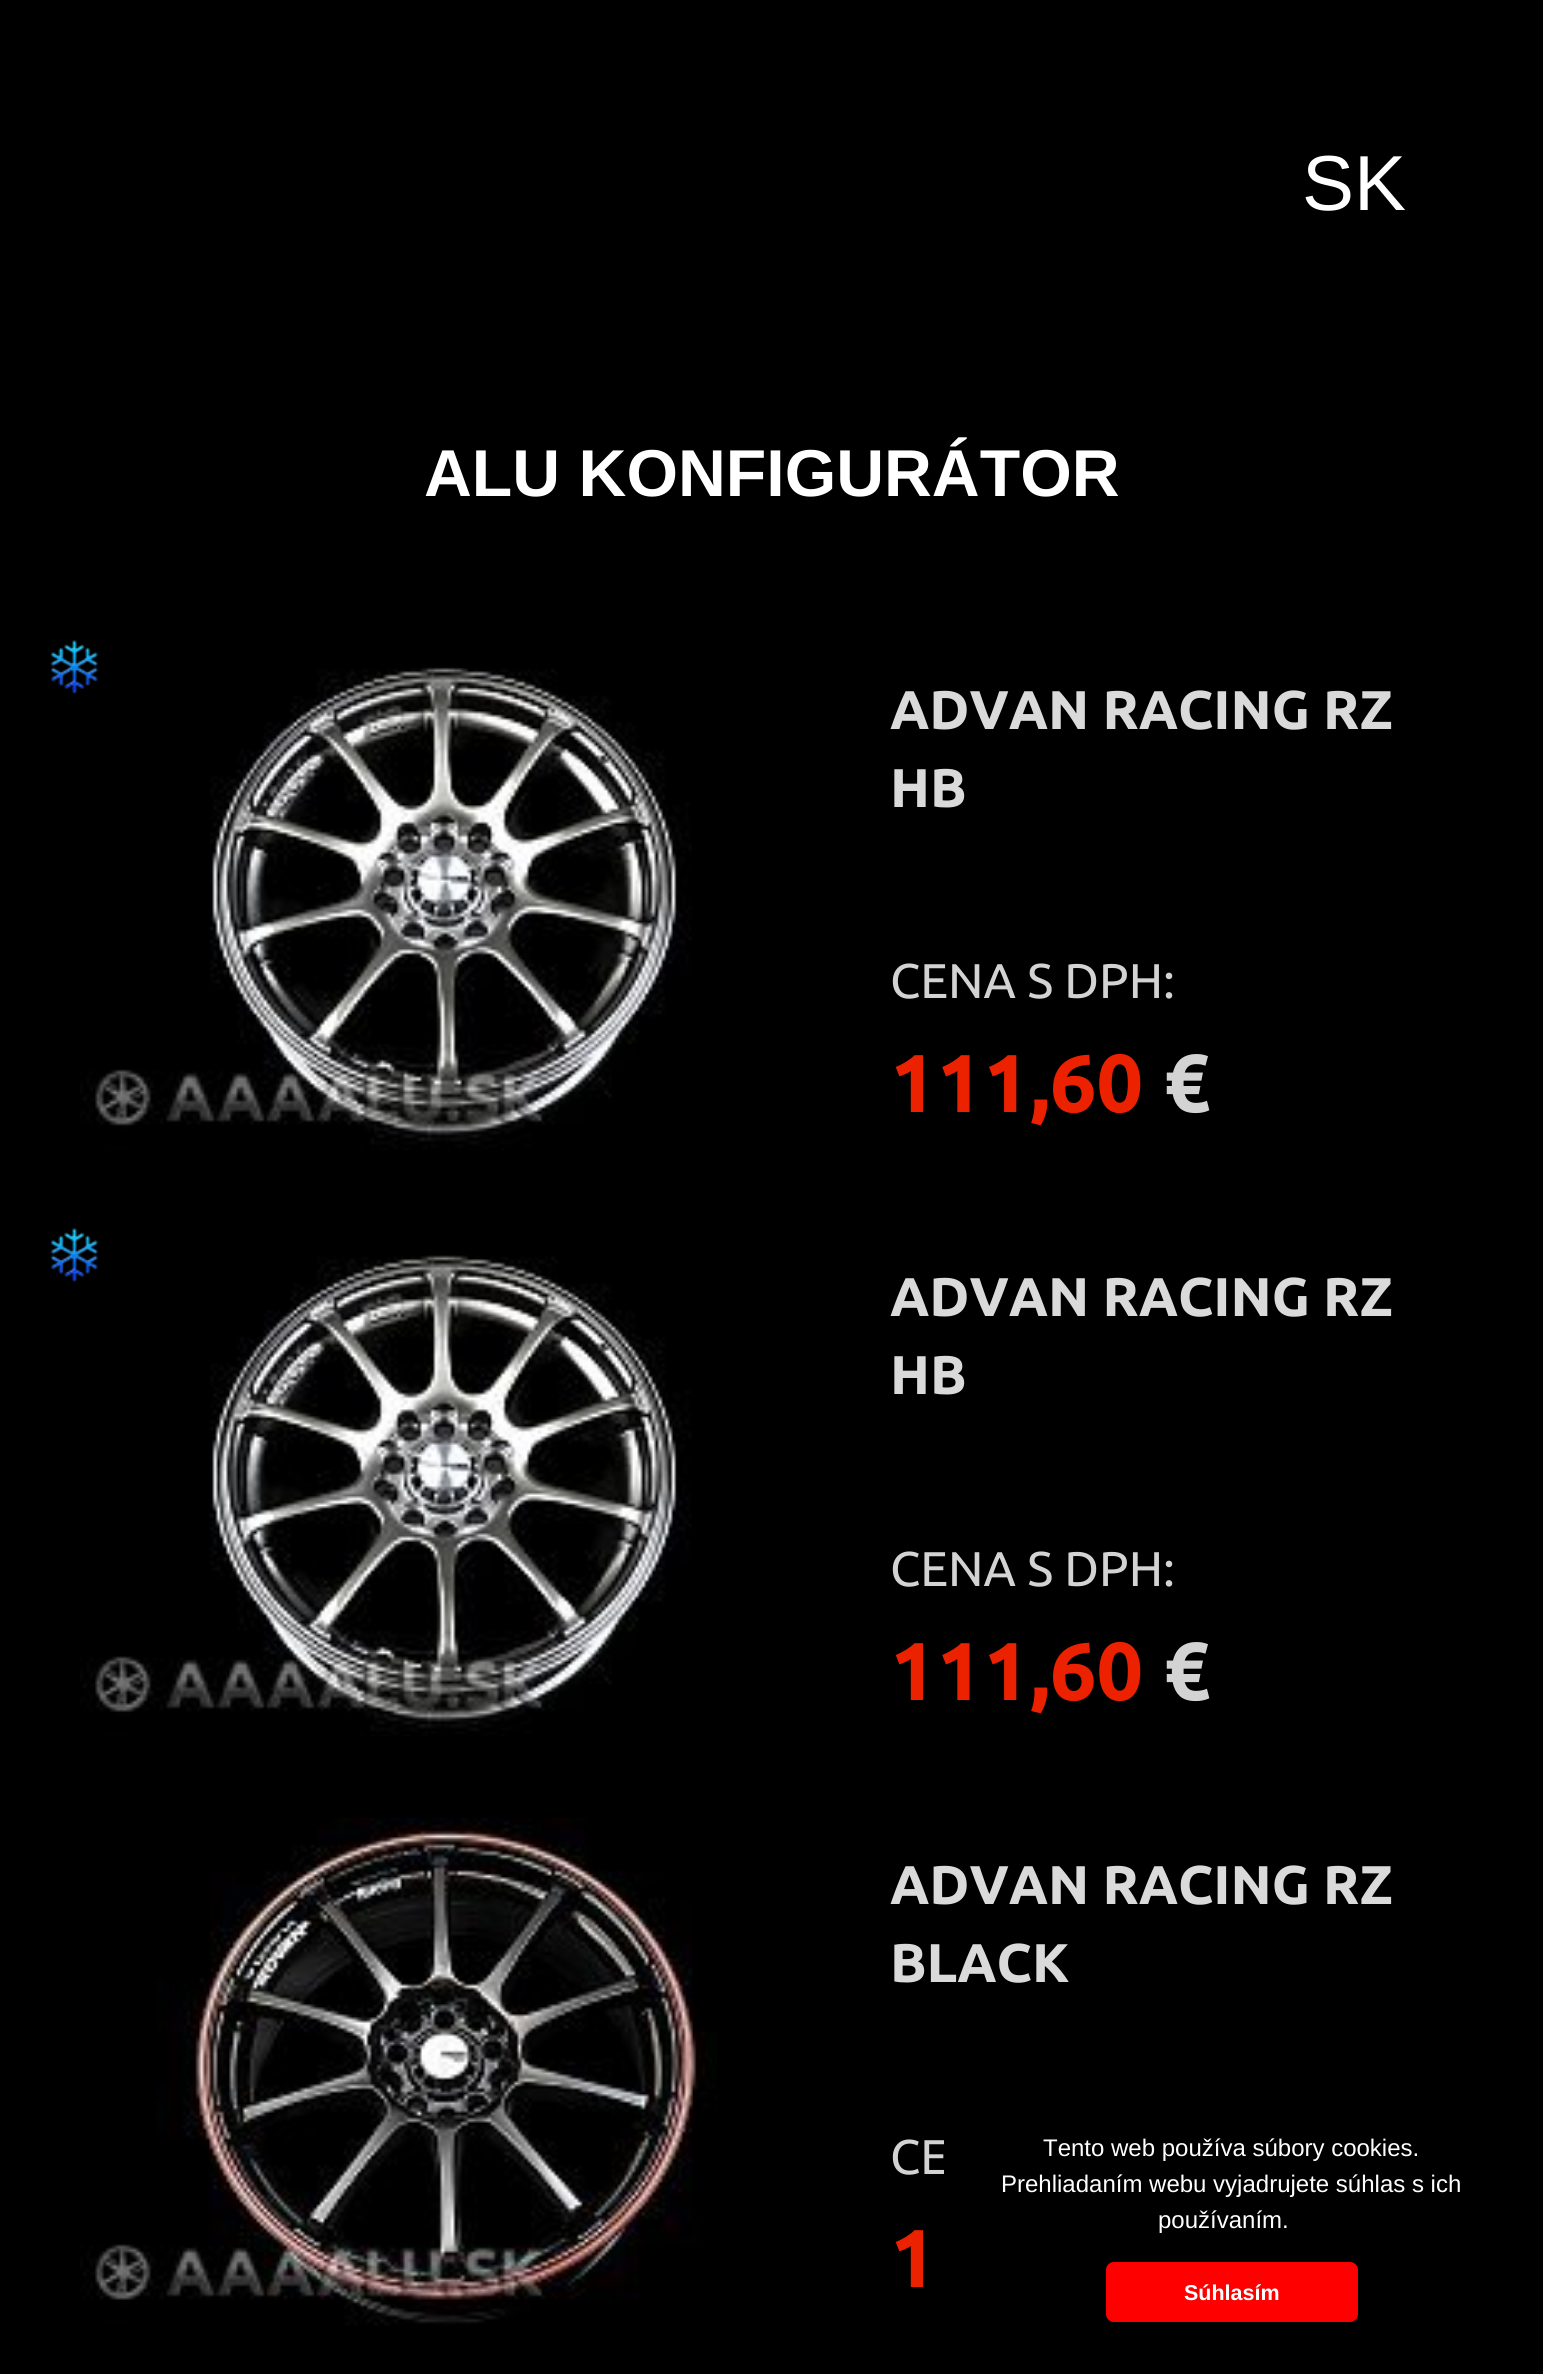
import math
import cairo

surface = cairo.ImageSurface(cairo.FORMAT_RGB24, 1543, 2374)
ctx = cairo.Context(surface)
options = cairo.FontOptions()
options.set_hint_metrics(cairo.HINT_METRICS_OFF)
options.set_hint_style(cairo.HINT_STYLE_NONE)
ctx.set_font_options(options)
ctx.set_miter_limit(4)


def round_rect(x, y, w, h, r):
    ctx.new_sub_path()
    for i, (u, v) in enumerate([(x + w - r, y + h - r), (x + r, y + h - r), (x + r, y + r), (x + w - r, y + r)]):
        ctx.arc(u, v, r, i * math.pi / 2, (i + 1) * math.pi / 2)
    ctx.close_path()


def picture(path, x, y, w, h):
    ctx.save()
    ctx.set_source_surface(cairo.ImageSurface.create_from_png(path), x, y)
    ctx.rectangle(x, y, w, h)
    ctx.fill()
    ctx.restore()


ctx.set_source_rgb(0, 0, 0)
ctx.paint()
ctx.select_font_face("Liberation Sans")
ctx.set_font_size(78)
ctx.set_source_rgb(1, 1, 1)
ctx.move_to(1302, 210)
ctx.show_text("SK")
ctx.select_font_face("Liberation Sans", cairo.FONT_SLANT_NORMAL, cairo.FONT_WEIGHT_BOLD)
ctx.set_font_size(66.25)
ctx.move_to(424, 496)
ctx.show_text("ALU KONFIGURÁTOR")
picture("img2.png", 80, 667, 612, 483)
picture("img1.png", 50, 640, 48, 54)
ctx.select_font_face("Ubuntu", cairo.FONT_SLANT_NORMAL, cairo.FONT_WEIGHT_BOLD)
ctx.set_font_size(54.5)
ctx.set_source_rgb(0.859, 0.855, 0.855)
ctx.move_to(890, 729)
ctx.show_text("ADVAN RACING RZ")
ctx.move_to(890, 807)
ctx.show_text("HB")
ctx.select_font_face("Ubuntu")
ctx.set_font_size(48.75)
ctx.set_source_rgb(0.827, 0.827, 0.827)
ctx.move_to(890, 998)
ctx.show_text("CENA S DPH:")
ctx.select_font_face("Ubuntu", cairo.FONT_SLANT_NORMAL, cairo.FONT_WEIGHT_BOLD)
ctx.set_font_size(82)
ctx.set_source_rgb(0.922, 0.129, 0)
ctx.move_to(890, 1112)
ctx.show_text("111,60")
ctx.set_source_rgb(0.827, 0.827, 0.827)
ctx.move_to(1163, 1112)
ctx.show_text("€")
picture("img3.png", 80, 1255, 612, 481)
picture("img1.png", 50, 1228, 48, 54)
ctx.set_font_size(54.5)
ctx.set_source_rgb(0.859, 0.855, 0.855)
ctx.move_to(890, 1316)
ctx.show_text("ADVAN RACING RZ")
ctx.move_to(890, 1394)
ctx.show_text("HB")
ctx.select_font_face("Ubuntu")
ctx.set_font_size(48.75)
ctx.set_source_rgb(0.827, 0.827, 0.827)
ctx.move_to(890, 1586)
ctx.show_text("CENA S DPH:")
ctx.select_font_face("Ubuntu", cairo.FONT_SLANT_NORMAL, cairo.FONT_WEIGHT_BOLD)
ctx.set_font_size(82)
ctx.set_source_rgb(0.922, 0.129, 0)
ctx.move_to(890, 1700)
ctx.show_text("111,60")
ctx.set_source_rgb(0.827, 0.827, 0.827)
ctx.move_to(1163, 1700)
ctx.show_text("€")
picture("img4.png", 80, 1818, 637, 508)
ctx.set_font_size(54.5)
ctx.set_source_rgb(0.859, 0.855, 0.855)
ctx.move_to(890, 1904)
ctx.show_text("ADVAN RACING RZ")
ctx.move_to(890, 1982)
ctx.show_text("BLACK")
ctx.select_font_face("Ubuntu")
ctx.set_font_size(48.75)
ctx.set_source_rgb(0.827, 0.827, 0.827)
ctx.move_to(890, 2174)
ctx.show_text("CE")
ctx.select_font_face("Ubuntu", cairo.FONT_SLANT_NORMAL, cairo.FONT_WEIGHT_BOLD)
ctx.set_font_size(82)
ctx.set_source_rgb(0.922, 0.129, 0)
ctx.move_to(890, 2287)
ctx.show_text("1")
ctx.set_source_rgb(0, 0, 0)
round_rect(944, 2102, 576, 249, 8)
ctx.fill()
ctx.select_font_face("Liberation Sans")
ctx.set_font_size(24)
ctx.set_source_rgb(1, 1, 1)
ctx.move_to(1043, 2156)
ctx.show_text("Tento web používa súbory cookies.")
ctx.move_to(1001, 2192)
ctx.show_text("Prehliadaním webu vyjadrujete súhlas s ich")
ctx.move_to(1158, 2228)
ctx.show_text("používaním.")
ctx.set_source_rgb(1, 0, 0)
round_rect(1106, 2262, 252, 60, 8)
ctx.fill()
ctx.select_font_face("Liberation Sans", cairo.FONT_SLANT_NORMAL, cairo.FONT_WEIGHT_BOLD)
ctx.set_font_size(21.5)
ctx.set_source_rgb(1, 1, 1)
ctx.move_to(1184, 2300)
ctx.show_text("Súhlasím")
surface.write_to_png("page.png")
